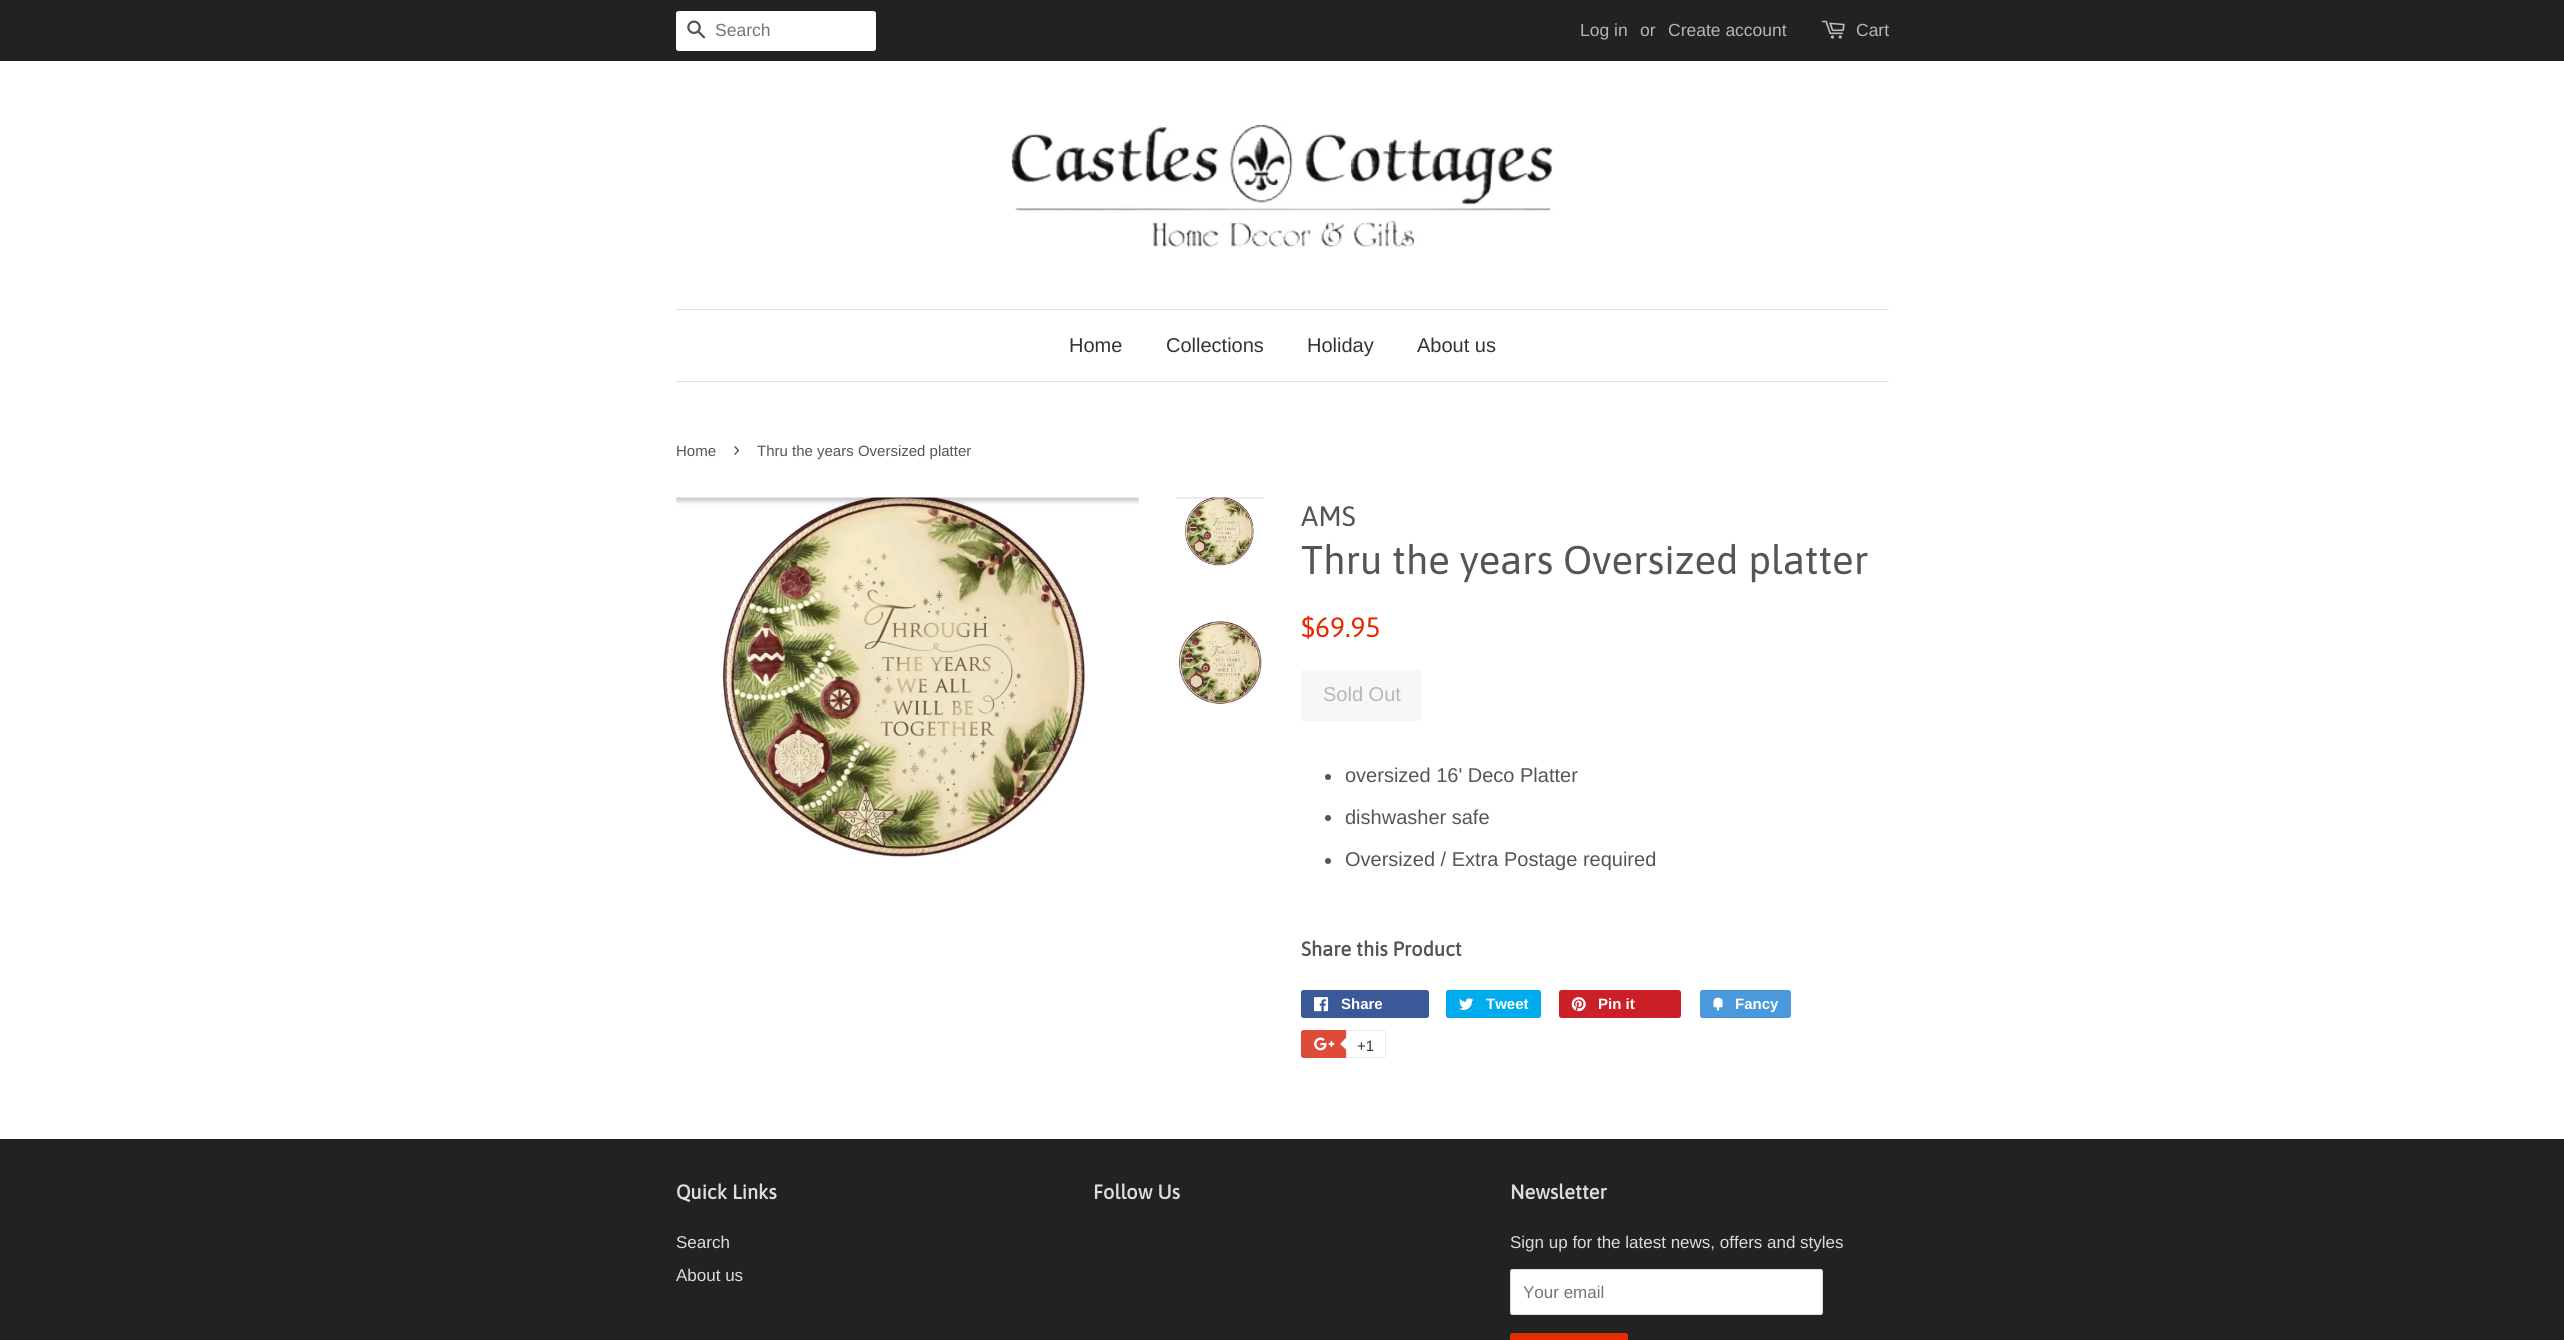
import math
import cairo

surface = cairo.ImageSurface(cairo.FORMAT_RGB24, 2564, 1340)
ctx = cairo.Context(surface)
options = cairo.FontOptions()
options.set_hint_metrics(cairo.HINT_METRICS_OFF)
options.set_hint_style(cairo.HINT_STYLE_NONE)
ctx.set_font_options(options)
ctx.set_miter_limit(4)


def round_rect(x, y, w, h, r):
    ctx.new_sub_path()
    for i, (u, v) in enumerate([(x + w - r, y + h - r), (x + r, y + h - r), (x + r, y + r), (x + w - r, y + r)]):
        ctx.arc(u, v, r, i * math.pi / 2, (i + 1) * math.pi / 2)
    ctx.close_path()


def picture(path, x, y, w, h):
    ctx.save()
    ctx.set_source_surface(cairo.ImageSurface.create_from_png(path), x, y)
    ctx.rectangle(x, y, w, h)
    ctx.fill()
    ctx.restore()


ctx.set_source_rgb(1, 1, 1)
ctx.paint()
ctx.set_source_rgb(0.133, 0.133, 0.133)
ctx.rectangle(0, 0, 2564, 61)
ctx.fill()
ctx.set_source_rgb(1, 1, 1)
round_rect(676, 11, 200, 40, 2.5)
ctx.fill()
picture("img1.png", 687, 20, 19, 19)
ctx.select_font_face("Liberation Sans")
ctx.set_font_size(17.5)
ctx.set_source_rgb(0.459, 0.459, 0.459)
ctx.move_to(715, 36)
ctx.show_text("Search")
ctx.set_source_rgb(0.714, 0.714, 0.714)
ctx.move_to(1580, 36)
ctx.show_text("Log in")
ctx.move_to(1640, 36)
ctx.show_text("or")
ctx.move_to(1668, 36)
ctx.show_text("Create account")
picture("img2.png", 1821, 20, 24, 19)
ctx.move_to(1856, 36)
ctx.show_text("Cart")
picture("img3.png", 1010, 124, 543, 124)
ctx.set_source_rgb(0.867, 0.867, 0.867)
ctx.rectangle(676, 309, 1213, 1)
ctx.fill()
ctx.rectangle(676, 381, 1213, 1)
ctx.fill()
ctx.set_font_size(20)
ctx.set_source_rgb(0.2, 0.2, 0.2)
ctx.move_to(1069, 352)
ctx.show_text("Home")
ctx.move_to(1166, 352)
ctx.show_text("Collections")
ctx.move_to(1307, 352)
ctx.show_text("Holiday")
ctx.move_to(1417, 352)
ctx.show_text("About us")
ctx.set_font_size(15)
ctx.set_source_rgb(0.333, 0.333, 0.333)
ctx.move_to(676, 456)
ctx.show_text("Home")
ctx.set_font_size(21)
ctx.move_to(733, 456)
ctx.show_text("›")
ctx.set_font_size(15)
ctx.move_to(757, 456)
ctx.show_text("Thru the years Oversized platter")
picture("img4.png", 676, 497, 463, 361)
picture("img5.png", 1176, 497, 88, 69)
picture("img6.png", 1178, 621, 84, 83)
ctx.select_font_face("Asap")
ctx.set_font_size(28)
ctx.move_to(1301, 526)
ctx.show_text("AMS")
ctx.set_font_size(40)
ctx.move_to(1301, 574)
ctx.show_text("Thru the years Oversized platter")
ctx.set_font_size(28)
ctx.set_source_rgb(0.894, 0.173, 0)
ctx.move_to(1301, 637)
ctx.show_text("$69.95")
ctx.set_source_rgb(0.965, 0.965, 0.965)
round_rect(1301, 670, 120, 51, 2.5)
ctx.fill()
ctx.select_font_face("Liberation Sans")
ctx.set_font_size(20)
ctx.set_source_rgb(0.714, 0.714, 0.714)
ctx.move_to(1323, 701)
ctx.show_text("Sold Out")
ctx.set_source_rgb(0.333, 0.333, 0.333)
ctx.new_path()
ctx.arc(1328, 777, 3, 0, 2 * math.pi)
ctx.fill()
ctx.move_to(1345, 782)
ctx.show_text("oversized 16' Deco Platter")
ctx.new_path()
ctx.arc(1328, 818, 3, 0, 2 * math.pi)
ctx.fill()
ctx.move_to(1345, 824)
ctx.show_text("dishwasher safe")
ctx.new_path()
ctx.arc(1328, 861, 3, 0, 2 * math.pi)
ctx.fill()
ctx.move_to(1345, 866)
ctx.show_text("Oversized / Extra Postage required")
ctx.select_font_face("Asap", cairo.FONT_SLANT_NORMAL, cairo.FONT_WEIGHT_BOLD)
ctx.move_to(1301, 956)
ctx.show_text("Share this Product")
ctx.set_source_rgb(0.231, 0.349, 0.596)
round_rect(1301, 990, 128, 28, 2.5)
ctx.fill()
picture("img7.png", 1314, 997, 15, 15)
ctx.select_font_face("Liberation Sans", cairo.FONT_SLANT_NORMAL, cairo.FONT_WEIGHT_BOLD)
ctx.set_font_size(15)
ctx.set_source_rgb(1, 1, 1)
ctx.move_to(1341, 1009)
ctx.show_text("Share")
ctx.set_source_rgb(0, 0.675, 0.929)
round_rect(1446, 990, 95, 28, 2.5)
ctx.fill()
picture("img8.png", 1459, 998, 15, 12)
ctx.set_source_rgb(1, 1, 1)
ctx.move_to(1486, 1009)
ctx.show_text("Tweet")
ctx.set_source_rgb(0.796, 0.125, 0.153)
round_rect(1559, 990, 122, 28, 2.5)
ctx.fill()
picture("img9.png", 1571, 997, 15, 15)
ctx.set_source_rgb(1, 1, 1)
ctx.move_to(1598, 1009)
ctx.show_text("Pin it")
ctx.set_source_rgb(0.286, 0.6, 0.863)
round_rect(1700, 990, 91, 28, 2.5)
ctx.fill()
picture("img10.png", 1713, 997, 10, 14)
ctx.set_source_rgb(1, 1, 1)
ctx.move_to(1735, 1009)
ctx.show_text("Fancy")
ctx.set_source_rgb(0.867, 0.294, 0.224)
round_rect(1301, 1030, 83, 28, 2.5)
ctx.fill()
picture("img11.png", 1314, 1037, 21, 14)
ctx.set_source_rgb(1, 1, 1)
ctx.new_path()
ctx.move_to(1346.5, 1030.5)
ctx.line_to(1383.5, 1030.5)
ctx.curve_to(1384.5, 1030.5, 1385.5, 1031.5, 1385.5, 1032.5)
ctx.line_to(1385.5, 1055.5)
ctx.curve_to(1385.5, 1056.5, 1384.5, 1057.5, 1383.5, 1057.5)
ctx.line_to(1346.5, 1057.5)
ctx.close_path()
ctx.fill_preserve()
ctx.set_source_rgb(0.925, 0.925, 0.925)
ctx.set_line_width(1)
ctx.stroke()
ctx.new_path()
ctx.move_to(1347.5, 1036)
ctx.line_to(1347.5, 1051)
ctx.line_to(1340, 1044)
ctx.close_path()
ctx.fill()
ctx.set_source_rgb(1, 1, 1)
ctx.new_path()
ctx.move_to(1349, 1036)
ctx.line_to(1349, 1051)
ctx.line_to(1341, 1044)
ctx.close_path()
ctx.fill()
ctx.select_font_face("Liberation Sans")
ctx.set_source_rgb(0.2, 0.2, 0.2)
ctx.move_to(1357, 1051)
ctx.show_text("+1")
ctx.set_source_rgb(0.133, 0.133, 0.133)
ctx.rectangle(0, 1139, 2564, 201)
ctx.fill()
ctx.select_font_face("Asap", cairo.FONT_SLANT_NORMAL, cairo.FONT_WEIGHT_BOLD)
ctx.set_font_size(20)
ctx.set_source_rgb(0.867, 0.867, 0.867)
ctx.move_to(676, 1199)
ctx.show_text("Quick Links")
ctx.select_font_face("Liberation Sans")
ctx.set_font_size(17)
ctx.move_to(676, 1248)
ctx.show_text("Search")
ctx.move_to(676, 1281)
ctx.show_text("About us")
ctx.select_font_face("Asap", cairo.FONT_SLANT_NORMAL, cairo.FONT_WEIGHT_BOLD)
ctx.set_font_size(20)
ctx.move_to(1093, 1199)
ctx.show_text("Follow Us")
ctx.move_to(1510, 1199)
ctx.show_text("Newsletter")
ctx.select_font_face("Liberation Sans")
ctx.set_font_size(17)
ctx.move_to(1510, 1248)
ctx.show_text("Sign up for the latest news, offers and styles")
ctx.set_source_rgb(1, 1, 1)
round_rect(1510.5, 1269.5, 312, 45, 2)
ctx.fill_preserve()
ctx.set_source_rgb(0.867, 0.867, 0.867)
ctx.stroke()
ctx.set_source_rgb(0.459, 0.459, 0.459)
ctx.move_to(1523, 1298)
ctx.show_text("Your email")
ctx.set_source_rgb(0.894, 0.173, 0)
round_rect(1510, 1333, 118, 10, 2.5)
ctx.fill()
surface.write_to_png("page.png")
